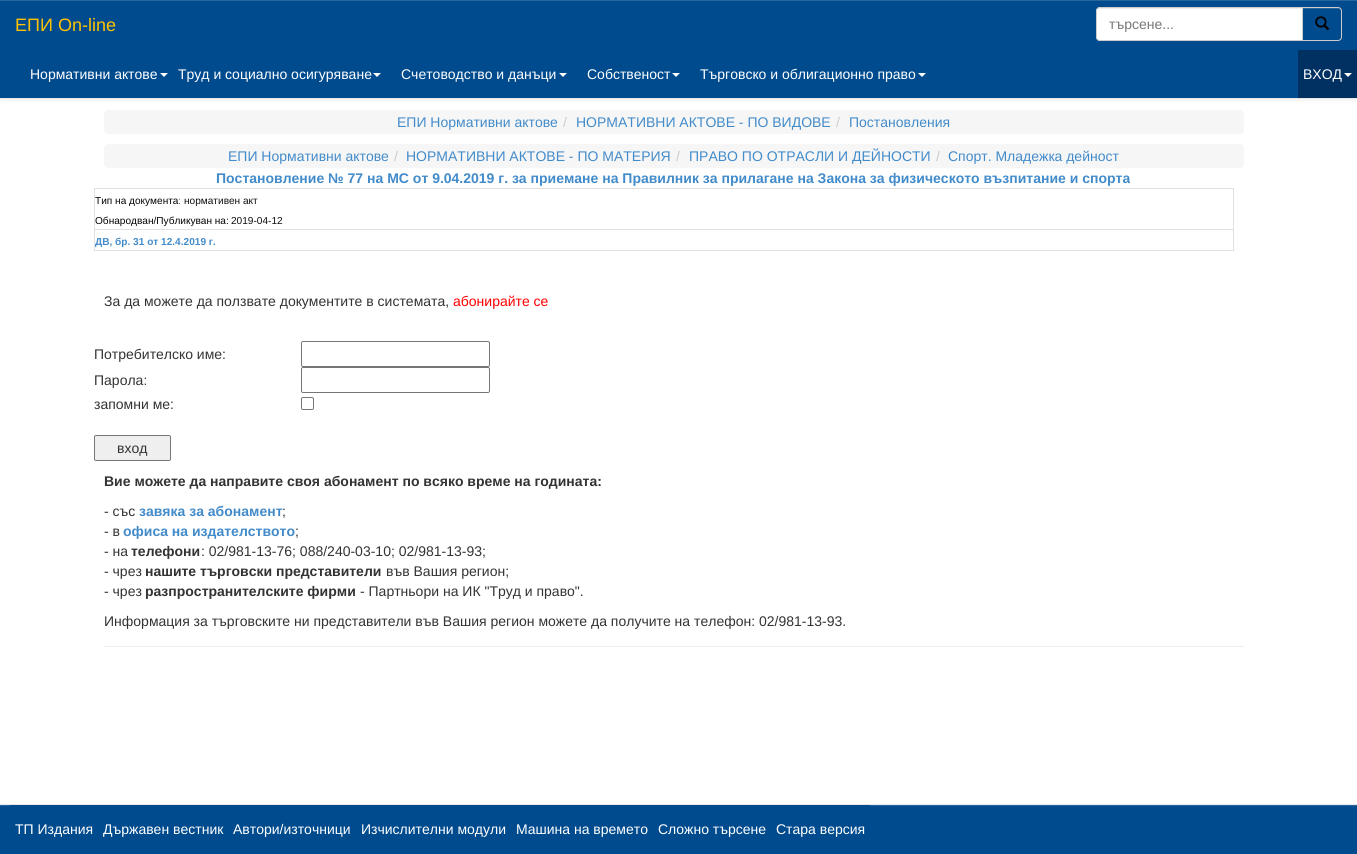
import math
import cairo

surface = cairo.ImageSurface(cairo.FORMAT_RGB24, 1357, 854)
ctx = cairo.Context(surface)
options = cairo.FontOptions()
options.set_hint_metrics(cairo.HINT_METRICS_OFF)
options.set_hint_style(cairo.HINT_STYLE_NONE)
ctx.set_font_options(options)
ctx.set_miter_limit(4)


def round_rect(x, y, w, h, r):
    ctx.new_sub_path()
    for i, (u, v) in enumerate([(x + w - r, y + h - r), (x + r, y + h - r), (x + r, y + r), (x + w - r, y + r)]):
        ctx.arc(u, v, r, i * math.pi / 2, (i + 1) * math.pi / 2)
    ctx.close_path()


def shadow(x, y, w, h, r, blur, alpha):
    ctx.push_group_with_content(cairo.CONTENT_ALPHA)
    ctx.set_operator(cairo.OPERATOR_SOURCE)
    for i in range(15, -16, -2):
        e = blur * i / 6
        if min(w, h) + 2 * e > 0:
            ctx.set_source_rgba(0, 0, 0, alpha * math.erfc((i - 1) / 8.5) / 2)
            round_rect(x - e, y - e, w + 2 * e, h + 2 * e, max(0, min(r + e + blur * .6, min(w, h) / 2 + e)))
            ctx.fill()
    ctx.mask(ctx.pop_group())


def picture(path, x, y, w, h):
    ctx.save()
    ctx.set_source_surface(cairo.ImageSurface.create_from_png(path), x, y)
    ctx.rectangle(x, y, w, h)
    ctx.fill()
    ctx.restore()


ctx.set_source_rgb(1, 1, 1)
ctx.paint()
ctx.set_source_rgb(0, 0, 0)
shadow(0, 1, 1357, 99, 0, 2.5, 0.07)
ctx.set_source_rgb(0, 0.294, 0.557)
ctx.rectangle(0, 1, 1357, 97)
ctx.fill()
ctx.set_source_rgb(0.149, 0.4, 0.624)
ctx.rectangle(0, 0, 1357, 1)
ctx.fill()
ctx.set_source_rgb(0.906, 0.906, 0.906)
ctx.rectangle(0, 98, 1357, 1)
ctx.fill()
ctx.select_font_face("Liberation Sans")
ctx.set_font_size(18)
ctx.set_source_rgb(1, 0.761, 0)
ctx.move_to(15, 31)
ctx.show_text("ЕПИ On-line")
ctx.set_source_rgb(0.149, 0.4, 0.624)
ctx.new_path()
ctx.move_to(1303, 9)
ctx.line_to(1338, 9)
ctx.curve_to(1340, 9, 1341, 10, 1341, 12)
ctx.line_to(1341, 11)
ctx.curve_to(1341, 9.5, 1339.5, 8, 1338, 8)
ctx.line_to(1303, 8)
ctx.close_path()
ctx.fill()
ctx.new_path()
ctx.move_to(1302.5, 7.5)
ctx.line_to(1338, 7.5)
ctx.curve_to(1340, 7.5, 1341.5, 9, 1341.5, 11)
ctx.line_to(1341.5, 37)
ctx.curve_to(1341.5, 39, 1340, 40.5, 1338, 40.5)
ctx.line_to(1302.5, 40.5)
ctx.close_path()
ctx.set_source_rgb(0.8, 0.8, 0.8)
ctx.set_line_width(1)
ctx.stroke()
ctx.set_source_rgb(1, 1, 1)
ctx.new_path()
ctx.move_to(1100, 7)
ctx.line_to(1303, 7)
ctx.line_to(1303, 41)
ctx.line_to(1100, 41)
ctx.curve_to(1098, 41, 1096, 39, 1096, 37)
ctx.line_to(1096, 11)
ctx.curve_to(1096, 9, 1098, 7, 1100, 7)
ctx.close_path()
ctx.fill()
ctx.set_source_rgb(0.925, 0.925, 0.925)
ctx.new_path()
ctx.move_to(1100, 9)
ctx.line_to(1302, 9)
ctx.line_to(1302, 8)
ctx.line_to(1099, 8)
ctx.curve_to(1097, 9, 1097, 10, 1097, 12)
ctx.curve_to(1097, 10, 1098, 9, 1100, 9)
ctx.close_path()
ctx.fill()
ctx.new_path()
ctx.move_to(1100, 7.5)
ctx.line_to(1302.5, 7.5)
ctx.line_to(1302.5, 40.5)
ctx.line_to(1100, 40.5)
ctx.curve_to(1098, 40.5, 1096.5, 39, 1096.5, 37)
ctx.line_to(1096.5, 11)
ctx.curve_to(1096.5, 9, 1098, 7.5, 1100, 7.5)
ctx.close_path()
ctx.set_source_rgb(0.8, 0.8, 0.8)
ctx.stroke()
ctx.set_font_size(14)
ctx.set_source_rgb(0.467, 0.467, 0.467)
ctx.move_to(1109, 29)
ctx.show_text("търсене...")
picture("img1.png", 1315, 16, 15, 15)
ctx.set_source_rgb(1, 1, 1)
ctx.move_to(30, 79)
ctx.show_text("Нормативни актове")
ctx.new_path()
ctx.move_to(160, 73)
ctx.line_to(168, 73)
ctx.line_to(164, 77)
ctx.close_path()
ctx.fill()
ctx.move_to(178, 79)
ctx.show_text("Труд и социално осигуряване")
ctx.new_path()
ctx.move_to(373, 73)
ctx.line_to(381, 73)
ctx.line_to(377, 77)
ctx.close_path()
ctx.fill()
ctx.move_to(401, 79)
ctx.show_text("Счетоводство и данъци")
ctx.new_path()
ctx.move_to(559, 73)
ctx.line_to(567, 73)
ctx.line_to(563, 77)
ctx.close_path()
ctx.fill()
ctx.move_to(587, 79)
ctx.show_text("Собственост")
ctx.new_path()
ctx.move_to(672, 73)
ctx.line_to(680, 73)
ctx.line_to(676, 77)
ctx.close_path()
ctx.fill()
ctx.move_to(700, 79)
ctx.show_text("Търговско и облигационно право")
ctx.new_path()
ctx.move_to(918, 73)
ctx.line_to(926, 73)
ctx.line_to(922, 77)
ctx.close_path()
ctx.fill()
ctx.set_source_rgb(0, 0.192, 0.384)
ctx.rectangle(1298, 50, 59, 48)
ctx.fill()
ctx.set_source_rgb(1, 1, 1)
ctx.move_to(1303, 79)
ctx.show_text("ВХОД")
ctx.new_path()
ctx.move_to(1344, 73)
ctx.line_to(1352, 73)
ctx.line_to(1348, 77)
ctx.close_path()
ctx.fill()
ctx.set_source_rgb(0.961, 0.961, 0.961)
round_rect(104, 110, 1140, 24, 4)
ctx.fill()
ctx.set_source_rgb(0.259, 0.545, 0.792)
ctx.move_to(397, 127)
ctx.show_text("ЕПИ Нормативни актове")
ctx.set_source_rgb(0.8, 0.8, 0.8)
ctx.move_to(563, 127)
ctx.show_text("/")
ctx.set_source_rgb(0.259, 0.545, 0.792)
ctx.move_to(576, 127)
ctx.show_text("НОРМАТИВНИ АКТОВЕ - ПО ВИДОВЕ")
ctx.set_source_rgb(0.8, 0.8, 0.8)
ctx.move_to(836, 127)
ctx.show_text("/")
ctx.set_source_rgb(0.259, 0.545, 0.792)
ctx.move_to(849, 127)
ctx.show_text("Постановления")
ctx.set_source_rgb(0.961, 0.961, 0.961)
round_rect(104, 144, 1140, 24, 4)
ctx.fill()
ctx.set_source_rgb(0.259, 0.545, 0.792)
ctx.move_to(228, 161)
ctx.show_text("ЕПИ Нормативни актове")
ctx.set_source_rgb(0.8, 0.8, 0.8)
ctx.move_to(394, 161)
ctx.show_text("/")
ctx.set_source_rgb(0.259, 0.545, 0.792)
ctx.move_to(406, 161)
ctx.show_text("НОРМАТИВНИ АКТОВЕ - ПО МАТЕРИЯ")
ctx.set_source_rgb(0.8, 0.8, 0.8)
ctx.move_to(676, 161)
ctx.show_text("/")
ctx.set_source_rgb(0.259, 0.545, 0.792)
ctx.move_to(689, 161)
ctx.show_text("ПРАВО ПО ОТРАСЛИ И ДЕЙНОСТИ")
ctx.set_source_rgb(0.8, 0.8, 0.8)
ctx.move_to(936, 161)
ctx.show_text("/")
ctx.set_source_rgb(0.259, 0.545, 0.792)
ctx.move_to(948, 161)
ctx.show_text("Спорт. Младежка дейност")
ctx.select_font_face("Liberation Sans", cairo.FONT_SLANT_NORMAL, cairo.FONT_WEIGHT_BOLD)
ctx.move_to(216, 183)
ctx.show_text("Постановление № 77 на МС от 9.04.2019 г. за приемане на Правилник за прилагане на Закона за физическото възпитание и спорта")
ctx.set_source_rgb(0.882, 0.882, 0.882)
ctx.rectangle(94, 188, 1140, 1)
ctx.fill()
ctx.rectangle(1233, 188, 1, 63)
ctx.fill()
ctx.rectangle(94, 250, 1140, 1)
ctx.fill()
ctx.rectangle(94, 188, 1, 63)
ctx.fill()
ctx.select_font_face("Liberation Sans")
ctx.set_font_size(10.1)
ctx.set_source_rgb(0.012, 0.012, 0.012)
ctx.move_to(95, 204)
ctx.show_text("Тип на документа:")
ctx.set_source_rgb(0.059, 0.059, 0.059)
ctx.move_to(184, 204)
ctx.show_text("нормативен акт")
ctx.set_source_rgb(0.012, 0.012, 0.012)
ctx.move_to(95, 224)
ctx.show_text("Обнародван/Публикуван на:")
ctx.set_source_rgb(0.059, 0.059, 0.059)
ctx.move_to(231, 224)
ctx.show_text("2019-04-12")
ctx.set_source_rgb(0.882, 0.882, 0.882)
ctx.rectangle(94, 229, 1140, 1)
ctx.fill()
ctx.select_font_face("Liberation Sans", cairo.FONT_SLANT_NORMAL, cairo.FONT_WEIGHT_BOLD)
ctx.set_source_rgb(0.259, 0.545, 0.792)
ctx.move_to(95, 245)
ctx.show_text("ДВ, бр. 31 от 12.4.2019 г.")
ctx.select_font_face("Liberation Sans")
ctx.set_font_size(14)
ctx.set_source_rgb(0.2, 0.2, 0.2)
ctx.move_to(104, 306)
ctx.show_text("За да можете да ползвате документите в системата,")
ctx.set_source_rgb(1, 0, 0)
ctx.move_to(453, 306)
ctx.show_text("абонирайте се")
ctx.set_source_rgb(0.2, 0.2, 0.2)
ctx.move_to(94, 359)
ctx.show_text("Потребителско име:")
round_rect(301.5, 341.5, 188, 25, 1.5)
ctx.set_source_rgb(0.463, 0.463, 0.463)
ctx.stroke()
ctx.set_source_rgb(0.2, 0.2, 0.2)
ctx.move_to(94, 385)
ctx.show_text("Парола:")
round_rect(301.5, 367.5, 188, 25, 1.5)
ctx.set_source_rgb(0.463, 0.463, 0.463)
ctx.stroke()
ctx.set_source_rgb(0.2, 0.2, 0.2)
ctx.move_to(94, 409)
ctx.show_text("запомни ме:")
round_rect(301.5, 397.5, 12, 12, 1.5)
ctx.set_source_rgb(0.463, 0.463, 0.463)
ctx.stroke()
ctx.set_source_rgb(0.937, 0.937, 0.937)
round_rect(94.5, 435.5, 76, 25, 1.5)
ctx.fill_preserve()
ctx.set_source_rgb(0.463, 0.463, 0.463)
ctx.stroke()
ctx.set_source_rgb(0.2, 0.2, 0.2)
ctx.move_to(117, 453)
ctx.show_text("вход")
ctx.select_font_face("Liberation Sans", cairo.FONT_SLANT_NORMAL, cairo.FONT_WEIGHT_BOLD)
ctx.move_to(104, 486)
ctx.show_text("Вие можете да направите своя абонамент по всяко време на годината:")
ctx.select_font_face("Liberation Sans")
ctx.move_to(104, 516)
ctx.show_text("- със")
ctx.select_font_face("Liberation Sans", cairo.FONT_SLANT_NORMAL, cairo.FONT_WEIGHT_BOLD)
ctx.set_source_rgb(0.259, 0.545, 0.792)
ctx.move_to(139, 516)
ctx.show_text("завяка за абонамент")
ctx.select_font_face("Liberation Sans")
ctx.set_source_rgb(0.2, 0.2, 0.2)
ctx.move_to(282, 516)
ctx.show_text(";")
ctx.move_to(104, 536)
ctx.show_text("- в")
ctx.select_font_face("Liberation Sans", cairo.FONT_SLANT_NORMAL, cairo.FONT_WEIGHT_BOLD)
ctx.set_source_rgb(0.259, 0.545, 0.792)
ctx.move_to(123, 536)
ctx.show_text("офиса на издателството")
ctx.select_font_face("Liberation Sans")
ctx.set_source_rgb(0.2, 0.2, 0.2)
ctx.move_to(295, 536)
ctx.show_text(";")
ctx.move_to(104, 556)
ctx.show_text("- на")
ctx.select_font_face("Liberation Sans", cairo.FONT_SLANT_NORMAL, cairo.FONT_WEIGHT_BOLD)
ctx.move_to(131, 556)
ctx.show_text("телефони")
ctx.select_font_face("Liberation Sans")
ctx.move_to(201, 556)
ctx.show_text(": 02/981-13-76; 088/240-03-10; 02/981-13-93;")
ctx.move_to(104, 576)
ctx.show_text("- чрез")
ctx.select_font_face("Liberation Sans", cairo.FONT_SLANT_NORMAL, cairo.FONT_WEIGHT_BOLD)
ctx.move_to(145, 576)
ctx.show_text("нашите търговски представители")
ctx.select_font_face("Liberation Sans")
ctx.move_to(386, 576)
ctx.show_text("във Вашия регион;")
ctx.move_to(104, 596)
ctx.show_text("- чрез")
ctx.select_font_face("Liberation Sans", cairo.FONT_SLANT_NORMAL, cairo.FONT_WEIGHT_BOLD)
ctx.move_to(145, 596)
ctx.show_text("разпространителските фирми")
ctx.select_font_face("Liberation Sans")
ctx.move_to(360, 596)
ctx.show_text("- Партньори на ИК \"Труд и право\".")
ctx.move_to(104, 626)
ctx.show_text("Информация за търговските ни представители във Вашия регион можете да получите на телефон: 02/981-13-93.")
ctx.set_source_rgb(0.933, 0.933, 0.933)
ctx.rectangle(104, 646, 1140, 1)
ctx.fill()
ctx.set_source_rgb(0, 0.294, 0.557)
ctx.rectangle(0, 806, 1357, 48)
ctx.fill()
ctx.set_source_rgb(0.149, 0.4, 0.624)
ctx.rectangle(0, 805, 1357, 1)
ctx.fill()
ctx.set_source_rgb(0.906, 0.906, 0.906)
ctx.rectangle(0, 804, 1357, 1)
ctx.fill()
ctx.set_source_rgb(0, 0.294, 0.557)
ctx.rectangle(10, 805, 860, 1)
ctx.fill()
ctx.set_source_rgb(1, 1, 1)
ctx.move_to(15, 834)
ctx.show_text("ТП Издания")
ctx.move_to(103, 834)
ctx.show_text("Държавен вестник")
ctx.move_to(233, 834)
ctx.show_text("Автори/източници")
ctx.move_to(361, 834)
ctx.show_text("Изчислителни модули")
ctx.move_to(516, 834)
ctx.show_text("Машина на времето")
ctx.move_to(658, 834)
ctx.show_text("Сложно търсене")
ctx.move_to(776, 834)
ctx.show_text("Стара версия")
surface.write_to_png("page.png")
